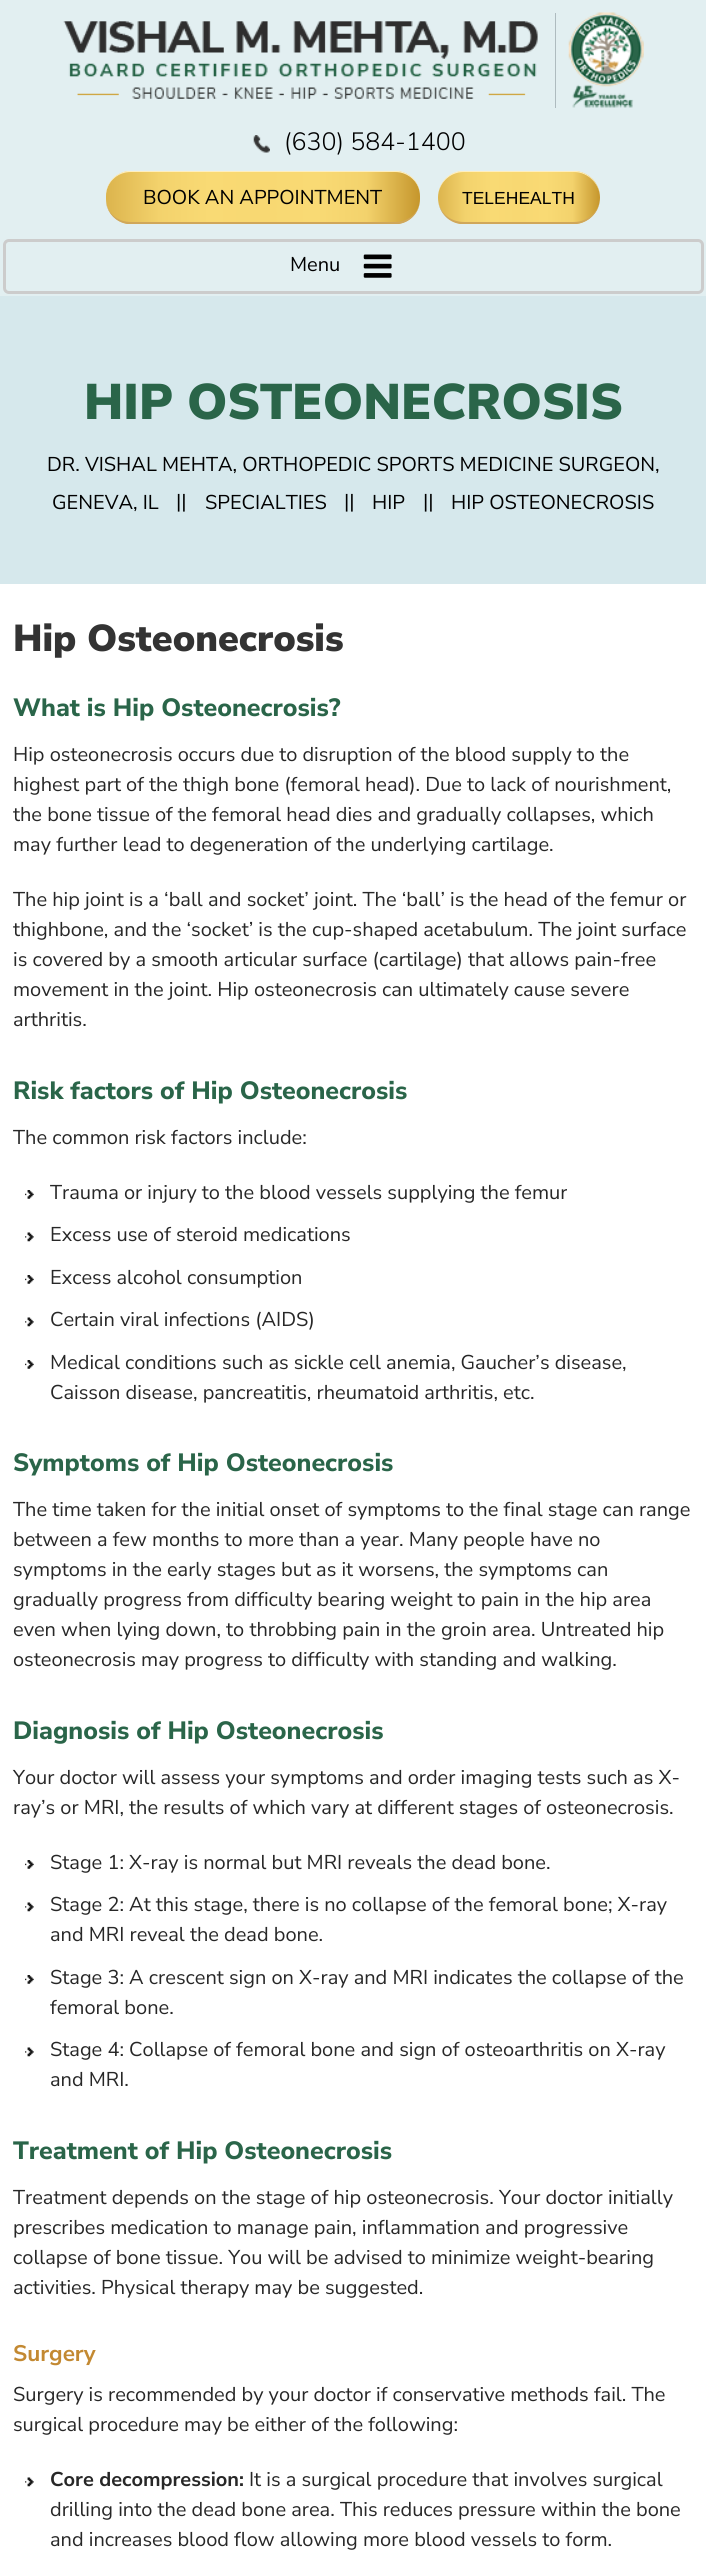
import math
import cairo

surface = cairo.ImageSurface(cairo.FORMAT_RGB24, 706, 2569)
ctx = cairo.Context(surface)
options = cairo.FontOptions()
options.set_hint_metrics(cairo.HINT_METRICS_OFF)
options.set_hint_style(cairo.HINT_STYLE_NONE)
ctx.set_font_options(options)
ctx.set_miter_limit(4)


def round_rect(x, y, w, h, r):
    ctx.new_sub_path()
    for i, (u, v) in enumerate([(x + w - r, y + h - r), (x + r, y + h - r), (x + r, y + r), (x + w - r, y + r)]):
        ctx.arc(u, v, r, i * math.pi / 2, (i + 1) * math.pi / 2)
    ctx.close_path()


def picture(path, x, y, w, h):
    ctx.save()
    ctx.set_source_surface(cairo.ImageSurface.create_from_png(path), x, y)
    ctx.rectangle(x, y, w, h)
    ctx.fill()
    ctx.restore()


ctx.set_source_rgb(1, 1, 1)
ctx.paint()
ctx.set_source_rgb(0.886, 0.937, 0.945)
ctx.rectangle(0, 0, 706, 296)
ctx.fill()
picture("img1.png", 63, 21, 475, 78)
ctx.set_source_rgb(0.682, 0.733, 0.749)
ctx.rectangle(555, 13, 1, 95)
ctx.fill()
picture("img2.png", 568, 12, 76, 96)
picture("img3.png", 253, 135, 17, 18)
ctx.select_font_face("Nunito Sans Light")
ctx.set_font_size(25)
ctx.set_source_rgb(0, 0, 0)
ctx.move_to(284, 150)
ctx.show_text("(630) 584-1400")
gradient = cairo.LinearGradient(106, 198, 420, 198)
gradient.add_color_stop_rgba(0, 0.863, 0.706, 0.302, 1)
gradient.add_color_stop_rgba(0.17, 0.953, 0.824, 0.424, 1)
gradient.add_color_stop_rgba(0.33, 0.976, 0.855, 0.455, 1)
gradient.add_color_stop_rgba(0.5, 0.973, 0.847, 0.447, 1)
gradient.add_color_stop_rgba(0.67, 0.976, 0.855, 0.455, 1)
gradient.add_color_stop_rgba(0.83, 0.953, 0.824, 0.424, 1)
gradient.add_color_stop_rgba(1, 0.773, 0.588, 0.173, 1)
ctx.set_source(gradient)
round_rect(106, 171, 314, 53, 25)
ctx.fill()
ctx.set_source_rgb(0.996, 0.937, 0.753)
ctx.new_path()
ctx.move_to(131, 172)
ctx.curve_to(118, 172, 108, 181, 106, 193)
ctx.line_to(106, 192)
ctx.curve_to(108, 181, 116, 173, 127, 171)
ctx.line_to(399, 171)
ctx.curve_to(411, 173, 420, 183, 420, 196)
ctx.curve_to(420, 183, 409, 172, 395, 172)
ctx.close_path()
ctx.fill()
ctx.set_source_rgb(0.816, 0.655, 0.353)
ctx.new_path()
ctx.move_to(399, 224)
ctx.curve_to(411, 222, 420, 212, 420, 199)
ctx.curve_to(420, 212, 409, 222, 395, 222)
ctx.line_to(131, 222)
ctx.curve_to(118, 222, 108, 214, 106, 202)
ctx.line_to(106, 203)
ctx.curve_to(108, 214, 116, 222, 127, 224)
ctx.close_path()
ctx.fill()
ctx.select_font_face("Nunito Sans")
ctx.set_font_size(20)
ctx.set_source_rgb(0, 0, 0)
ctx.move_to(143, 204)
ctx.show_text("BOOK AN APPOINTMENT")
gradient = cairo.LinearGradient(438, 198, 600, 198)
gradient.add_color_stop_rgba(0, 0.863, 0.706, 0.302, 1)
gradient.add_color_stop_rgba(0.17, 0.953, 0.824, 0.424, 1)
gradient.add_color_stop_rgba(0.33, 0.976, 0.855, 0.455, 1)
gradient.add_color_stop_rgba(0.5, 0.973, 0.847, 0.447, 1)
gradient.add_color_stop_rgba(0.67, 0.976, 0.855, 0.455, 1)
gradient.add_color_stop_rgba(0.83, 0.953, 0.824, 0.424, 1)
gradient.add_color_stop_rgba(1, 0.773, 0.588, 0.173, 1)
ctx.set_source(gradient)
round_rect(438, 171, 162, 53, 26.5)
ctx.fill()
ctx.set_source_rgb(0.996, 0.937, 0.753)
ctx.new_path()
ctx.move_to(464, 172)
ctx.curve_to(449, 172, 438, 184, 438, 198)
ctx.curve_to(438, 184, 447, 173, 460, 171)
ctx.line_to(577, 171)
ctx.curve_to(590, 173, 600, 184, 600, 198)
ctx.curve_to(600, 184, 588, 172, 574, 172)
ctx.close_path()
ctx.fill()
ctx.set_source_rgb(0.816, 0.655, 0.353)
ctx.set_fill_rule(cairo.FILL_RULE_EVEN_ODD)
ctx.new_path()
ctx.move_to(577, 224)
ctx.line_to(460, 224)
ctx.curve_to(447, 222, 438, 211, 438, 198)
ctx.curve_to(438, 211, 449, 222, 464, 222)
ctx.line_to(574, 222)
ctx.curve_to(588, 222, 600, 211, 600, 198)
ctx.curve_to(600, 211, 590, 222, 577, 224)
ctx.close_path()
ctx.move_to(438, 198)
ctx.line_to(438, 198)
ctx.close_path()
ctx.fill()
ctx.select_font_face("Liberation Sans")
ctx.set_font_size(17.5)
ctx.set_source_rgb(0, 0, 0)
ctx.move_to(462, 204)
ctx.show_text("TELEHEALTH")
round_rect(4.5, 240.5, 698, 52, 4.5)
ctx.set_source_rgb(0.8, 0.8, 0.8)
ctx.set_line_width(3)
ctx.stroke()
ctx.select_font_face("Nunito Sans")
ctx.set_font_size(20)
ctx.set_source_rgb(0, 0, 0)
ctx.move_to(290, 271)
ctx.show_text("Menu")
picture("img4.png", 363, 254, 29, 24)
ctx.set_source_rgb(0.839, 0.91, 0.922)
ctx.rectangle(0, 296, 706, 288)
ctx.fill()
ctx.select_font_face("Nunito Sans Black")
ctx.set_font_size(50)
ctx.set_source_rgb(0.165, 0.396, 0.286)
ctx.move_to(84, 419)
ctx.show_text("HIP OSTEONECROSIS")
ctx.select_font_face("Nunito Sans")
ctx.set_font_size(20)
ctx.set_source_rgb(0, 0, 0)
ctx.move_to(47, 471)
ctx.show_text("DR. VISHAL MEHTA, ORTHOPEDIC SPORTS MEDICINE SURGEON,")
ctx.move_to(52, 509)
ctx.show_text("GENEVA, IL")
ctx.move_to(176, 508)
ctx.show_text("||")
ctx.move_to(205, 509)
ctx.show_text("SPECIALTIES")
ctx.move_to(344, 508)
ctx.show_text("||")
ctx.move_to(372, 509)
ctx.show_text("HIP")
ctx.move_to(423, 508)
ctx.show_text("||")
ctx.move_to(451, 509)
ctx.show_text("HIP OSTEONECROSIS")
ctx.select_font_face("Nunito Sans Black")
ctx.set_font_size(37.5)
ctx.set_source_rgb(0.2, 0.2, 0.2)
ctx.move_to(13, 651)
ctx.show_text("Hip Osteonecrosis")
ctx.select_font_face("Nunito Sans ExtraBold")
ctx.set_font_size(25)
ctx.set_source_rgb(0.165, 0.396, 0.286)
ctx.move_to(13, 716)
ctx.show_text("What is Hip Osteonecrosis?")
ctx.select_font_face("Nunito Sans")
ctx.set_font_size(20)
ctx.set_source_rgb(0.153, 0.153, 0.153)
ctx.move_to(13, 761)
ctx.show_text("Hip osteonecrosis occurs due to disruption of the blood supply to the")
ctx.move_to(13, 791)
ctx.show_text("highest part of the thigh bone (femoral head). Due to lack of nourishment,")
ctx.move_to(13, 821)
ctx.show_text("the bone tissue of the femoral head dies and gradually collapses, which")
ctx.move_to(13, 851)
ctx.show_text("may further lead to degeneration of the underlying cartilage.")
ctx.move_to(13, 906)
ctx.show_text("The hip joint is a ‘ball and socket’ joint. The ‘ball’ is the head of the femur or")
ctx.move_to(13, 936)
ctx.show_text("thighbone, and the ‘socket’ is the cup-shaped acetabulum. The joint surface")
ctx.move_to(13, 966)
ctx.show_text("is covered by a smooth articular surface (cartilage) that allows pain-free")
ctx.move_to(13, 996)
ctx.show_text("movement in the joint. Hip osteonecrosis can ultimately cause severe")
ctx.move_to(13, 1026)
ctx.show_text("arthritis.")
ctx.select_font_face("Nunito Sans ExtraBold")
ctx.set_font_size(25)
ctx.set_source_rgb(0.165, 0.396, 0.286)
ctx.move_to(13, 1099)
ctx.show_text("Risk factors of Hip Osteonecrosis")
ctx.select_font_face("Nunito Sans")
ctx.set_font_size(20)
ctx.set_source_rgb(0.153, 0.153, 0.153)
ctx.move_to(13, 1144)
ctx.show_text("The common risk factors include:")
picture("img5.png", 25, 1190, 9, 9)
ctx.move_to(50, 1199)
ctx.show_text("Trauma or injury to the blood vessels supplying the femur")
picture("img6.png", 25, 1232, 9, 10)
ctx.move_to(50, 1241)
ctx.show_text("Excess use of steroid medications")
picture("img5.png", 25, 1275, 9, 9)
ctx.move_to(50, 1284)
ctx.show_text("Excess alcohol consumption")
picture("img6.png", 25, 1317, 9, 10)
ctx.move_to(50, 1326)
ctx.show_text("Certain viral infections (AIDS)")
picture("img5.png", 25, 1360, 9, 9)
ctx.move_to(50, 1369)
ctx.show_text("Medical conditions such as sickle cell anemia, Gaucher’s disease,")
ctx.move_to(50, 1399)
ctx.show_text("Caisson disease, pancreatitis, rheumatoid arthritis, etc.")
ctx.select_font_face("Nunito Sans ExtraBold")
ctx.set_font_size(25)
ctx.set_source_rgb(0.165, 0.396, 0.286)
ctx.move_to(13, 1471)
ctx.show_text("Symptoms of Hip Osteonecrosis")
ctx.select_font_face("Nunito Sans")
ctx.set_font_size(20)
ctx.set_source_rgb(0.153, 0.153, 0.153)
ctx.move_to(13, 1516)
ctx.show_text("The time taken for the initial onset of symptoms to the final stage can range")
ctx.move_to(13, 1546)
ctx.show_text("between a few months to more than a year. Many people have no")
ctx.move_to(13, 1576)
ctx.show_text("symptoms in the early stages but as it worsens, the symptoms can")
ctx.move_to(13, 1606)
ctx.show_text("gradually progress from difficulty bearing weight to pain in the hip area")
ctx.move_to(13, 1636)
ctx.show_text("even when lying down, to throbbing pain in the groin area. Untreated hip")
ctx.move_to(13, 1666)
ctx.show_text("osteonecrosis may progress to difficulty with standing and walking.")
ctx.select_font_face("Nunito Sans ExtraBold")
ctx.set_font_size(25)
ctx.set_source_rgb(0.165, 0.396, 0.286)
ctx.move_to(13, 1739)
ctx.show_text("Diagnosis of Hip Osteonecrosis")
ctx.select_font_face("Nunito Sans")
ctx.set_font_size(20)
ctx.set_source_rgb(0.153, 0.153, 0.153)
ctx.move_to(13, 1784)
ctx.show_text("Your doctor will assess your symptoms and order imaging tests such as X-")
ctx.move_to(13, 1814)
ctx.show_text("ray’s or MRI, the results of which vary at different stages of osteonecrosis.")
picture("img5.png", 25, 1860, 9, 9)
ctx.move_to(50, 1869)
ctx.show_text("Stage 1: X-ray is normal but MRI reveals the dead bone.")
picture("img6.png", 25, 1902, 9, 10)
ctx.move_to(50, 1911)
ctx.show_text("Stage 2: At this stage, there is no collapse of the femoral bone; X-ray")
ctx.move_to(50, 1941)
ctx.show_text("and MRI reveal the dead bone.")
picture("img5.png", 25, 1975, 9, 9)
ctx.move_to(50, 1984)
ctx.show_text("Stage 3: A crescent sign on X-ray and MRI indicates the collapse of the")
ctx.move_to(50, 2014)
ctx.show_text("femoral bone.")
picture("img7.png", 25, 2047, 9, 10)
ctx.move_to(50, 2056)
ctx.show_text("Stage 4: Collapse of femoral bone and sign of osteoarthritis on X-ray")
ctx.move_to(50, 2086)
ctx.show_text("and MRI.")
ctx.select_font_face("Nunito Sans ExtraBold")
ctx.set_font_size(25)
ctx.set_source_rgb(0.165, 0.396, 0.286)
ctx.move_to(13, 2159)
ctx.show_text("Treatment of Hip Osteonecrosis")
ctx.select_font_face("Nunito Sans")
ctx.set_font_size(20)
ctx.set_source_rgb(0.153, 0.153, 0.153)
ctx.move_to(13, 2204)
ctx.show_text("Treatment depends on the stage of hip osteonecrosis. Your doctor initially")
ctx.move_to(13, 2234)
ctx.show_text("prescribes medication to manage pain, inflammation and progressive")
ctx.move_to(13, 2264)
ctx.show_text("collapse of bone tissue. You will be advised to minimize weight-bearing")
ctx.move_to(13, 2294)
ctx.show_text("activities. Physical therapy may be suggested.")
ctx.select_font_face("Nunito Sans", cairo.FONT_SLANT_NORMAL, cairo.FONT_WEIGHT_BOLD)
ctx.set_font_size(22.5)
ctx.set_source_rgb(0.765, 0.537, 0.196)
ctx.move_to(13, 2361)
ctx.show_text("Surgery")
ctx.select_font_face("Nunito Sans")
ctx.set_font_size(20)
ctx.set_source_rgb(0.153, 0.153, 0.153)
ctx.move_to(13, 2401)
ctx.show_text("Surgery is recommended by your doctor if conservative methods fail. The")
ctx.move_to(13, 2431)
ctx.show_text("surgical procedure may be either of the following:")
picture("img6.png", 25, 2477, 9, 10)
ctx.select_font_face("Nunito Sans", cairo.FONT_SLANT_NORMAL, cairo.FONT_WEIGHT_BOLD)
ctx.move_to(50, 2486)
ctx.show_text("Core decompression:")
ctx.select_font_face("Nunito Sans")
ctx.move_to(249, 2486)
ctx.show_text("It is a surgical procedure that involves surgical")
ctx.move_to(50, 2516)
ctx.show_text("drilling into the dead bone area. This reduces pressure within the bone")
ctx.move_to(50, 2546)
ctx.show_text("and increases blood flow allowing more blood vessels to form.")
surface.write_to_png("page.png")
